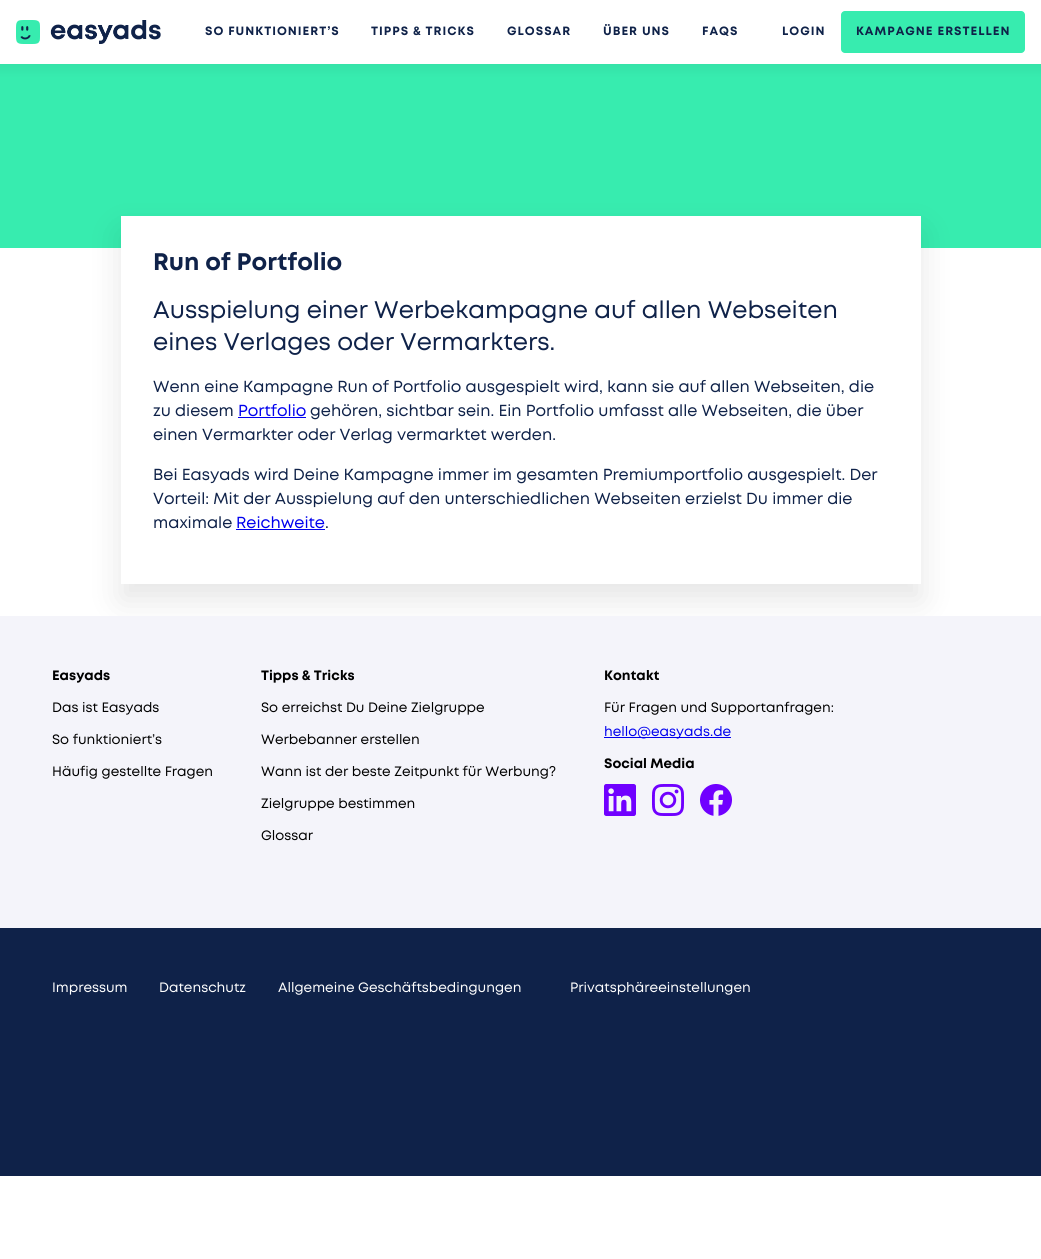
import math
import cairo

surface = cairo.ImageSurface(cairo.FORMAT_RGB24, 1041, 1259)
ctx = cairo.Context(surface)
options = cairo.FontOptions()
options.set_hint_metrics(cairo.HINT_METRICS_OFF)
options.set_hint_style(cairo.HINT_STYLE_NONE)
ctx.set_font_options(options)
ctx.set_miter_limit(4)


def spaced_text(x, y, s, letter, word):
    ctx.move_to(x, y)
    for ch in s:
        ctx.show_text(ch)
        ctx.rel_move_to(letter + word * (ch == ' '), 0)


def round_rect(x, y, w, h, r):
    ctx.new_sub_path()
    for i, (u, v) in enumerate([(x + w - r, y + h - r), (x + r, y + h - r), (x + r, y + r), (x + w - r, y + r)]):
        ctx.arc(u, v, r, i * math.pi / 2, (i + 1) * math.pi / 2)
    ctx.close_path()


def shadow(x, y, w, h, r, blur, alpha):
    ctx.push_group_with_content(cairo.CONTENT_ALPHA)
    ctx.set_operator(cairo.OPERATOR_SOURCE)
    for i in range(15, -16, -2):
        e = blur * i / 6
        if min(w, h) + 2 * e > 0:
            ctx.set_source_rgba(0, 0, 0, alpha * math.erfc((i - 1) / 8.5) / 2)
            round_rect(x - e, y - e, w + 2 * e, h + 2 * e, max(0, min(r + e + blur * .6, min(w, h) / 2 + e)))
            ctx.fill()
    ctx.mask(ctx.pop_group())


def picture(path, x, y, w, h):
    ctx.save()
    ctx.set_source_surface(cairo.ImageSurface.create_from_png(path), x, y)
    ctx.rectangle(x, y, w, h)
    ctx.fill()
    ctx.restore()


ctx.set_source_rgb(1, 1, 1)
ctx.paint()
ctx.set_source_rgb(0.216, 0.925, 0.686)
ctx.rectangle(0, 64, 1041, 184)
ctx.fill()
ctx.set_source_rgb(0, 0, 0)
shadow(-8, -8, 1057, 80, 0, 4, 0.04)
ctx.set_source_rgb(1, 1, 1)
ctx.rectangle(0, 0, 1041, 64)
ctx.fill()
picture("img1.png", 16, 20, 145, 24)
ctx.select_font_face("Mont", cairo.FONT_SLANT_NORMAL, cairo.FONT_WEIGHT_BOLD)
ctx.set_font_size(12)
ctx.set_source_rgb(0.059, 0.133, 0.286)
spaced_text(205, 35, "SO FUNKTIONIERT’S", 1, 0)
spaced_text(371, 35, "TIPPS & TRICKS", 1, 0)
spaced_text(507, 35, "GLOSSAR", 1, 0)
spaced_text(603, 35, "ÜBER UNS", 1, 0)
spaced_text(702, 35, "FAQS", 1, 0)
spaced_text(782, 35, "LOGIN", 1, 0)
ctx.set_source_rgb(0.216, 0.925, 0.686)
round_rect(841, 11, 184, 42, 4)
ctx.fill()
ctx.set_source_rgb(0.059, 0.133, 0.286)
spaced_text(856, 35, "KAMPAGNE ERSTELLEN", 1, 0)
ctx.set_source_rgb(0, 0, 0)
shadow(121, 232, 800, 368, 0, 16, 0.1)
ctx.set_source_rgb(1, 1, 1)
ctx.rectangle(121, 216, 800, 368)
ctx.fill()
ctx.set_font_size(24)
ctx.set_source_rgb(0.059, 0.133, 0.286)
ctx.move_to(153, 270)
ctx.show_text("Run of Portfolio")
ctx.select_font_face("Mont")
ctx.move_to(153, 318)
ctx.show_text("Ausspielung einer Werbekampagne auf allen Webseiten")
ctx.move_to(153, 350)
ctx.show_text("eines Verlages oder Vermarkters.")
ctx.set_font_size(16)
ctx.move_to(153, 392)
ctx.show_text("Wenn eine Kampagne Run of Portfolio ausgespielt wird, kann sie auf allen Webseiten, die")
ctx.move_to(153, 416)
ctx.show_text("zu diesem")
ctx.set_source_rgb(0, 0, 0.933)
ctx.move_to(238, 416)
ctx.show_text("Portfolio")
ctx.rectangle(238, 417, 68, 1)
ctx.fill()
ctx.set_source_rgb(0.059, 0.133, 0.286)
ctx.move_to(310, 416)
ctx.show_text("gehören, sichtbar sein. Ein Portfolio umfasst alle Webseiten, die über")
ctx.move_to(153, 440)
ctx.show_text("einen Vermarkter oder Verlag vermarktet werden.")
ctx.move_to(153, 480)
ctx.show_text("Bei Easyads wird Deine Kampagne immer im gesamten Premiumportfolio ausgespielt. Der")
ctx.move_to(153, 504)
ctx.show_text("Vorteil: Mit der Ausspielung auf den unterschiedlichen Webseiten erzielst Du immer die")
ctx.move_to(153, 528)
ctx.show_text("maximale")
ctx.set_source_rgb(0, 0, 0.933)
ctx.move_to(236, 528)
ctx.show_text("Reichweite")
ctx.rectangle(236, 529, 89, 1)
ctx.fill()
ctx.set_source_rgb(0.059, 0.133, 0.286)
ctx.move_to(325, 528)
ctx.show_text(".")
ctx.set_source_rgb(0.957, 0.957, 0.98)
ctx.rectangle(0, 616, 1041, 312)
ctx.fill()
ctx.select_font_face("Mont", cairo.FONT_SLANT_NORMAL, cairo.FONT_WEIGHT_BOLD)
ctx.set_font_size(13.6)
ctx.set_source_rgb(0, 0, 0)
ctx.move_to(52, 680)
ctx.show_text("Easyads")
ctx.select_font_face("Mont")
ctx.move_to(52, 712)
ctx.show_text("Das ist Easyads")
ctx.move_to(52, 744)
ctx.show_text("So funktioniert’s")
ctx.move_to(52, 776)
ctx.show_text("Häufig gestellte Fragen")
ctx.select_font_face("Mont", cairo.FONT_SLANT_NORMAL, cairo.FONT_WEIGHT_BOLD)
ctx.move_to(261, 680)
ctx.show_text("Tipps & Tricks")
ctx.select_font_face("Mont")
ctx.move_to(261, 712)
ctx.show_text("So erreichst Du Deine Zielgruppe")
ctx.move_to(261, 744)
ctx.show_text("Werbebanner erstellen")
ctx.move_to(261, 776)
ctx.show_text("Wann ist der beste Zeitpunkt für Werbung?")
ctx.move_to(261, 808)
ctx.show_text("Zielgruppe bestimmen")
ctx.move_to(261, 840)
ctx.show_text("Glossar")
ctx.select_font_face("Mont", cairo.FONT_SLANT_NORMAL, cairo.FONT_WEIGHT_BOLD)
ctx.move_to(604, 680)
ctx.show_text("Kontakt")
ctx.select_font_face("Mont")
ctx.move_to(604, 712)
ctx.show_text("Für Fragen und Supportanfragen:")
ctx.set_source_rgb(0, 0, 0.933)
ctx.rectangle(604, 737, 127, 1)
ctx.fill()
ctx.move_to(604, 736)
ctx.show_text("hello@easyads.de")
ctx.select_font_face("Mont", cairo.FONT_SLANT_NORMAL, cairo.FONT_WEIGHT_BOLD)
ctx.set_source_rgb(0, 0, 0)
ctx.move_to(604, 768)
ctx.show_text("Social Media")
picture("img2.png", 604, 784, 32, 32)
picture("img3.png", 652, 784, 32, 32)
picture("img4.png", 700, 784, 32, 32)
ctx.set_source_rgb(0.059, 0.133, 0.286)
ctx.rectangle(0, 928, 1041, 248)
ctx.fill()
ctx.select_font_face("Mont")
ctx.set_source_rgb(1, 1, 1)
ctx.move_to(52, 992)
ctx.show_text("Impressum")
ctx.move_to(159, 992)
ctx.show_text("Datenschutz")
ctx.move_to(278, 992)
ctx.show_text("Allgemeine Geschäftsbedingungen")
ctx.move_to(570, 992)
ctx.show_text("Privatsphäreeinstellungen")
surface.write_to_png("page.png")
